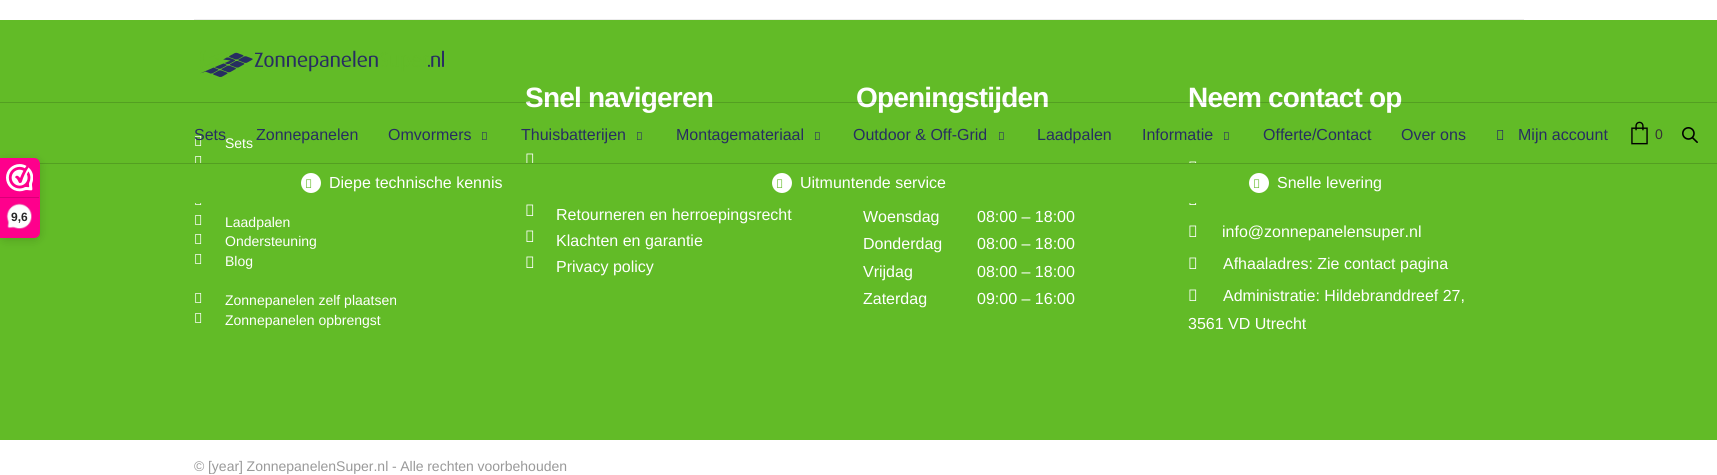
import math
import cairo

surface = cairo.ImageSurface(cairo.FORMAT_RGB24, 1717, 475)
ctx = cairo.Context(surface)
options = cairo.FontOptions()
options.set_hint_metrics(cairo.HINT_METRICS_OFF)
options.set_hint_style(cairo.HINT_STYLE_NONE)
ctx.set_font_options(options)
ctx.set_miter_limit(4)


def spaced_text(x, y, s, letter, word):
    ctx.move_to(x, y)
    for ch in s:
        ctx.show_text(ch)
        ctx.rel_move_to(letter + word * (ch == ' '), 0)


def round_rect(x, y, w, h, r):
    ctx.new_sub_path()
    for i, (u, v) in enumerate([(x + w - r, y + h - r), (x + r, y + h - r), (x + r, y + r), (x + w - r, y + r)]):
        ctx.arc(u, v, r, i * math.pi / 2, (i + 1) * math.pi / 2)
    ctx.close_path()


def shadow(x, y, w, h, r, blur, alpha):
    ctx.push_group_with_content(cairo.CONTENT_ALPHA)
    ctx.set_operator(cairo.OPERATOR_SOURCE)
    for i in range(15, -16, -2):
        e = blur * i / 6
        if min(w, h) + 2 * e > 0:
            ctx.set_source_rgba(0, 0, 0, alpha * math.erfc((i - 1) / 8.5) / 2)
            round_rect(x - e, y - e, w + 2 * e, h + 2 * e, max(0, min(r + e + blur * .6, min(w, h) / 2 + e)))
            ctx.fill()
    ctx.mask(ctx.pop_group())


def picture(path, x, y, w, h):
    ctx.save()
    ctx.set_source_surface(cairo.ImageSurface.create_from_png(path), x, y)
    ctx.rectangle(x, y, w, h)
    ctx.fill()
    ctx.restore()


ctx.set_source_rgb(1, 1, 1)
ctx.paint()
ctx.set_source_rgb(0.384, 0.733, 0.153)
ctx.rectangle(0, 20, 1717, 420)
ctx.fill()
ctx.set_source_rgb(0.325, 0.624, 0.129)
ctx.rectangle(39, 163, 1678, 1)
ctx.fill()
ctx.set_source_rgb(0, 0, 0)
shadow(0, 160, 40, 80, 6, 5, 0.15)
ctx.set_source_rgb(0.996, 0, 0.549)
ctx.new_path()
ctx.move_to(0, 158)
ctx.line_to(34, 158)
ctx.curve_to(37.5, 158, 40, 160.5, 40, 164)
ctx.line_to(40, 232)
ctx.curve_to(40, 235.5, 37.5, 238, 34, 238)
ctx.line_to(0, 238)
ctx.close_path()
ctx.fill()
picture("img1.png", 6, 164, 27, 28)
ctx.set_source_rgb(0.847, 0, 0.467)
ctx.rectangle(0, 197, 39, 1)
ctx.fill()
picture("img2.png", 6, 203, 26, 26)
ctx.select_font_face("Liberation Sans", cairo.FONT_SLANT_NORMAL, cairo.FONT_WEIGHT_BOLD)
ctx.set_font_size(12)
ctx.set_source_rgb(0.153, 0.149, 0.149)
ctx.move_to(11, 221)
ctx.show_text("9,6")
ctx.set_source_rgb(0.922, 0.922, 0.922)
ctx.rectangle(194, 19, 1330, 1)
ctx.fill()
picture("img3.png", 195, 136, 7, 10)
ctx.select_font_face("Liberation Sans")
ctx.set_font_size(14)
ctx.set_source_rgb(1, 1, 1)
ctx.move_to(225, 148)
ctx.show_text("Sets")
picture("img4.png", 195, 156, 7, 7)
picture("img5.png", 195, 203, 7, 2)
picture("img3.png", 195, 215, 7, 10)
ctx.move_to(225, 227)
ctx.show_text("Laadpalen")
picture("img3.png", 195, 234, 7, 10)
ctx.move_to(225, 246)
ctx.show_text("Ondersteuning")
picture("img3.png", 195, 254, 7, 10)
ctx.move_to(225, 266)
ctx.show_text("Blog")
picture("img3.png", 195, 293, 7, 10)
ctx.move_to(225, 305)
ctx.show_text("Zonnepanelen zelf plaatsen")
picture("img3.png", 195, 313, 7, 10)
ctx.move_to(225, 325)
ctx.show_text("Zonnepanelen opbrengst")
ctx.select_font_face("Liberation Sans", cairo.FONT_SLANT_NORMAL, cairo.FONT_WEIGHT_BOLD)
ctx.set_font_size(28)
spaced_text(525, 107, "Snel navigeren", -0.8, 0)
picture("img6.png", 526, 153, 8, 10)
picture("img7.png", 526, 204, 8, 12)
ctx.select_font_face("Liberation Sans")
ctx.set_font_size(16)
ctx.move_to(556, 220)
ctx.show_text("Retourneren en herroepingsrecht")
picture("img7.png", 526, 230, 8, 12)
ctx.move_to(556, 246)
ctx.show_text("Klachten en garantie")
picture("img7.png", 526, 256, 8, 12)
ctx.move_to(556, 272)
ctx.show_text("Privacy policy")
ctx.select_font_face("Liberation Sans", cairo.FONT_SLANT_NORMAL, cairo.FONT_WEIGHT_BOLD)
ctx.set_font_size(28)
spaced_text(856, 107, "Openingstijden", -0.8, 0)
ctx.select_font_face("Liberation Sans")
ctx.set_font_size(16)
ctx.move_to(863, 222)
ctx.show_text("Woensdag")
ctx.move_to(977, 222)
ctx.show_text("08:00 – 18:00")
ctx.move_to(863, 249)
ctx.show_text("Donderdag")
ctx.move_to(977, 249)
ctx.show_text("08:00 – 18:00")
ctx.move_to(863, 277)
ctx.show_text("Vrijdag")
ctx.move_to(977, 277)
ctx.show_text("08:00 – 18:00")
ctx.move_to(863, 304)
ctx.show_text("Zaterdag")
ctx.move_to(977, 304)
ctx.show_text("09:00 – 16:00")
ctx.select_font_face("Liberation Sans", cairo.FONT_SLANT_NORMAL, cairo.FONT_WEIGHT_BOLD)
ctx.set_font_size(28)
spaced_text(1188, 107, "Neem contact op", -0.8, 0)
picture("img8.png", 1189, 161, 8, 2)
picture("img9.png", 1189, 203, 8, 2)
picture("img7.png", 1189, 225, 8, 12)
ctx.select_font_face("Liberation Sans")
ctx.set_font_size(16)
ctx.move_to(1222, 237)
ctx.show_text("info@zonnepanelensuper.nl")
picture("img7.png", 1189, 257, 8, 12)
ctx.move_to(1223, 269)
ctx.show_text("Afhaaladres: Zie contact pagina")
picture("img7.png", 1189, 289, 8, 12)
ctx.move_to(1223, 301)
ctx.show_text("Administratie: Hildebranddreef 27,")
ctx.move_to(1188, 329)
ctx.show_text("3561 VD Utrecht")
ctx.set_font_size(14)
ctx.set_source_rgb(0.6, 0.6, 0.6)
spaced_text(194, 471, "© [year] ZonnepanelenSuper.nl - Alle rechten voorbehouden", 0, -0.25)
picture("img10.png", 200, 50, 244, 27)
ctx.set_source_rgba(0, 0, 0, 0.15)
ctx.rectangle(0, 102, 1717, 1)
ctx.fill()
ctx.set_font_size(16)
ctx.set_source_rgb(0.153, 0.18, 0.38)
ctx.move_to(194, 140)
ctx.show_text("Sets")
ctx.move_to(256, 140)
ctx.show_text("Zonnepanelen")
ctx.move_to(388, 140)
ctx.show_text("Omvormers")
picture("img11.png", 482, 132, 5, 8)
ctx.move_to(521, 140)
ctx.show_text("Thuisbatterijen")
picture("img11.png", 637, 132, 5, 8)
ctx.move_to(676, 140)
ctx.show_text("Montagemateriaal")
picture("img11.png", 815, 132, 5, 8)
ctx.move_to(853, 140)
ctx.show_text("Outdoor & Off-Grid")
picture("img11.png", 999, 132, 5, 8)
ctx.move_to(1037, 140)
ctx.show_text("Laadpalen")
ctx.move_to(1142, 140)
ctx.show_text("Informatie")
picture("img11.png", 1224, 132, 5, 8)
ctx.move_to(1263, 140)
ctx.show_text("Offerte/Contact")
ctx.move_to(1401, 140)
ctx.show_text("Over ons")
picture("img12.png", 1497, 130, 7, 10)
ctx.move_to(1518, 140)
ctx.show_text("Mijn account")
picture("img13.png", 1631, 121, 17, 24)
ctx.set_font_size(14)
ctx.set_source_rgb(0.204, 0.204, 0.204)
ctx.move_to(1655, 139)
ctx.show_text("0")
picture("img14.png", 1682, 127, 16, 16)
ctx.set_source_rgb(1, 1, 1)
ctx.arc(311, 183, 10, 0, 2 * math.pi)
ctx.fill()
picture("img15.png", 306, 179, 6, 9)
ctx.set_font_size(16)
ctx.move_to(329, 188)
ctx.show_text("Diepe technische kennis")
ctx.new_path()
ctx.arc(782, 183, 10, 0, 2 * math.pi)
ctx.fill()
picture("img15.png", 777, 179, 6, 9)
ctx.move_to(800, 188)
ctx.show_text("Uitmuntende service")
ctx.new_path()
ctx.arc(1259, 183, 10, 0, 2 * math.pi)
ctx.fill()
picture("img15.png", 1254, 179, 6, 9)
ctx.move_to(1277, 188)
ctx.show_text("Snelle levering")
surface.write_to_png("page.png")
